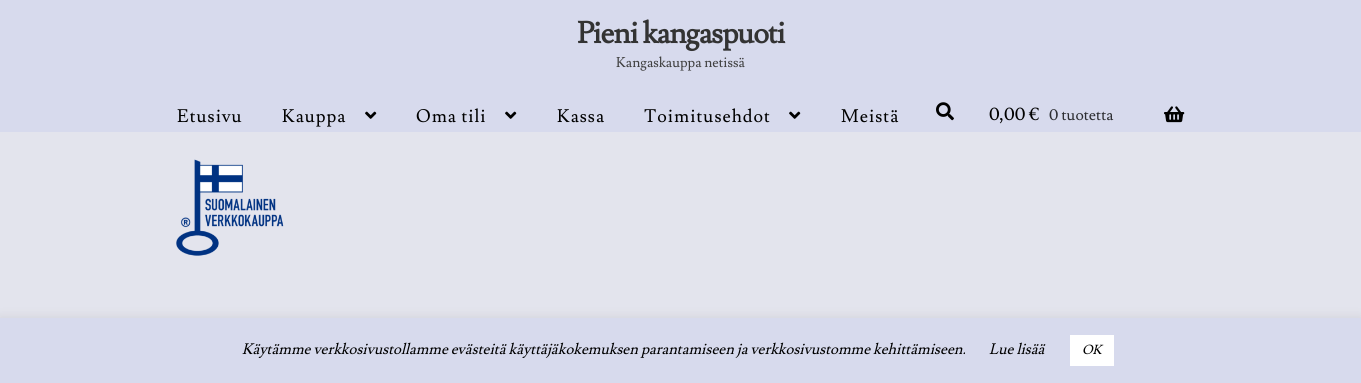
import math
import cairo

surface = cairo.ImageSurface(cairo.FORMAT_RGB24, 1361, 383)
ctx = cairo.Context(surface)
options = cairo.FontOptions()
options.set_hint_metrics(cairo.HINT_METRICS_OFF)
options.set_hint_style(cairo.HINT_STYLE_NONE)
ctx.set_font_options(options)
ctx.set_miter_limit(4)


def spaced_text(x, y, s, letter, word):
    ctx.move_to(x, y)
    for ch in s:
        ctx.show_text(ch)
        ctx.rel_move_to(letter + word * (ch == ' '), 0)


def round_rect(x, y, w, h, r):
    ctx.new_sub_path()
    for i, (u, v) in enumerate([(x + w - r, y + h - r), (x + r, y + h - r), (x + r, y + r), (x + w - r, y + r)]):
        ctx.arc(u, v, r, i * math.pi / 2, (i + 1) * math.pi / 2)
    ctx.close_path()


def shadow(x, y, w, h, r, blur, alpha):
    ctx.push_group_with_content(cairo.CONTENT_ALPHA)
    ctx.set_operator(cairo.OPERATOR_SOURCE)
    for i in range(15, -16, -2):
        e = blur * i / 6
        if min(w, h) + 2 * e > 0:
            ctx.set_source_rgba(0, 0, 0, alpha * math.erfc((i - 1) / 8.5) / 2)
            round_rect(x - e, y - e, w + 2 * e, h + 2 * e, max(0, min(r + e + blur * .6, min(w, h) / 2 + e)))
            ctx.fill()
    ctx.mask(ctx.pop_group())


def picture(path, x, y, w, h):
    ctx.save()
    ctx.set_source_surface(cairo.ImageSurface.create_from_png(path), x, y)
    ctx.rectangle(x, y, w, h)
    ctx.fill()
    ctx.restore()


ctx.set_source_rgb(0.89, 0.894, 0.929)
ctx.paint()
ctx.set_source_rgb(0.843, 0.855, 0.929)
ctx.rectangle(0, 0, 1361, 132)
ctx.fill()
ctx.select_font_face("Lusitana", cairo.FONT_SLANT_NORMAL, cairo.FONT_WEIGHT_BOLD)
ctx.set_font_size(30)
ctx.set_source_rgb(0.2, 0.2, 0.2)
spaced_text(577, 43, "Pieni kangaspuoti", -1, 0)
ctx.select_font_face("Lusitana")
ctx.set_font_size(14)
ctx.set_source_rgb(0.251, 0.251, 0.251)
ctx.move_to(616, 67)
ctx.show_text("Kangaskauppa netissä")
ctx.set_font_size(18)
ctx.set_source_rgb(0, 0, 0)
spaced_text(177, 122, "Etusivu", 1, 0)
spaced_text(282, 122, "Kauppa", 1, 0)
picture("img1.png", 365, 111, 12, 8)
spaced_text(416, 122, "Oma tili", 1, 0)
picture("img1.png", 505, 111, 12, 8)
spaced_text(557, 122, "Kassa", 1, 0)
spaced_text(644, 122, "Toimitusehdot", 1, 0)
picture("img1.png", 789, 111, 12, 8)
spaced_text(841, 122, "Meistä", 1, 0)
picture("img2.png", 936, 102, 18, 19)
ctx.move_to(989, 120)
ctx.show_text("0,00 €")
ctx.set_font_size(15.75)
ctx.set_source_rgb(0.176, 0.18, 0.196)
ctx.move_to(1049, 120)
ctx.show_text("0 tuotetta")
picture("img3.png", 1164, 106, 21, 17)
picture("img4.png", 176, 159, 108, 97)
ctx.set_source_rgb(0.675, 0.671, 0.671)
shadow(0, 317, 1361, 65, 0, 5, 0.3)
ctx.set_source_rgb(0.843, 0.855, 0.929)
ctx.rectangle(0, 318, 1361, 65)
ctx.fill()
ctx.select_font_face("Lusitana", cairo.FONT_SLANT_ITALIC)
ctx.set_font_size(15)
ctx.set_source_rgb(0, 0, 0)
ctx.move_to(242, 354)
ctx.show_text("Käytämme verkkosivustollamme evästeitä käyttäjäkokemuksen parantamiseen ja verkkosivustomme kehittämiseen.")
ctx.move_to(989, 354)
ctx.show_text("Lue lisää")
ctx.set_source_rgb(1, 1, 1)
ctx.rectangle(1070, 335, 44, 31)
ctx.fill()
ctx.set_font_size(13)
ctx.set_source_rgb(0, 0, 0)
ctx.move_to(1082, 354)
ctx.show_text("OK")
surface.write_to_png("page.png")
